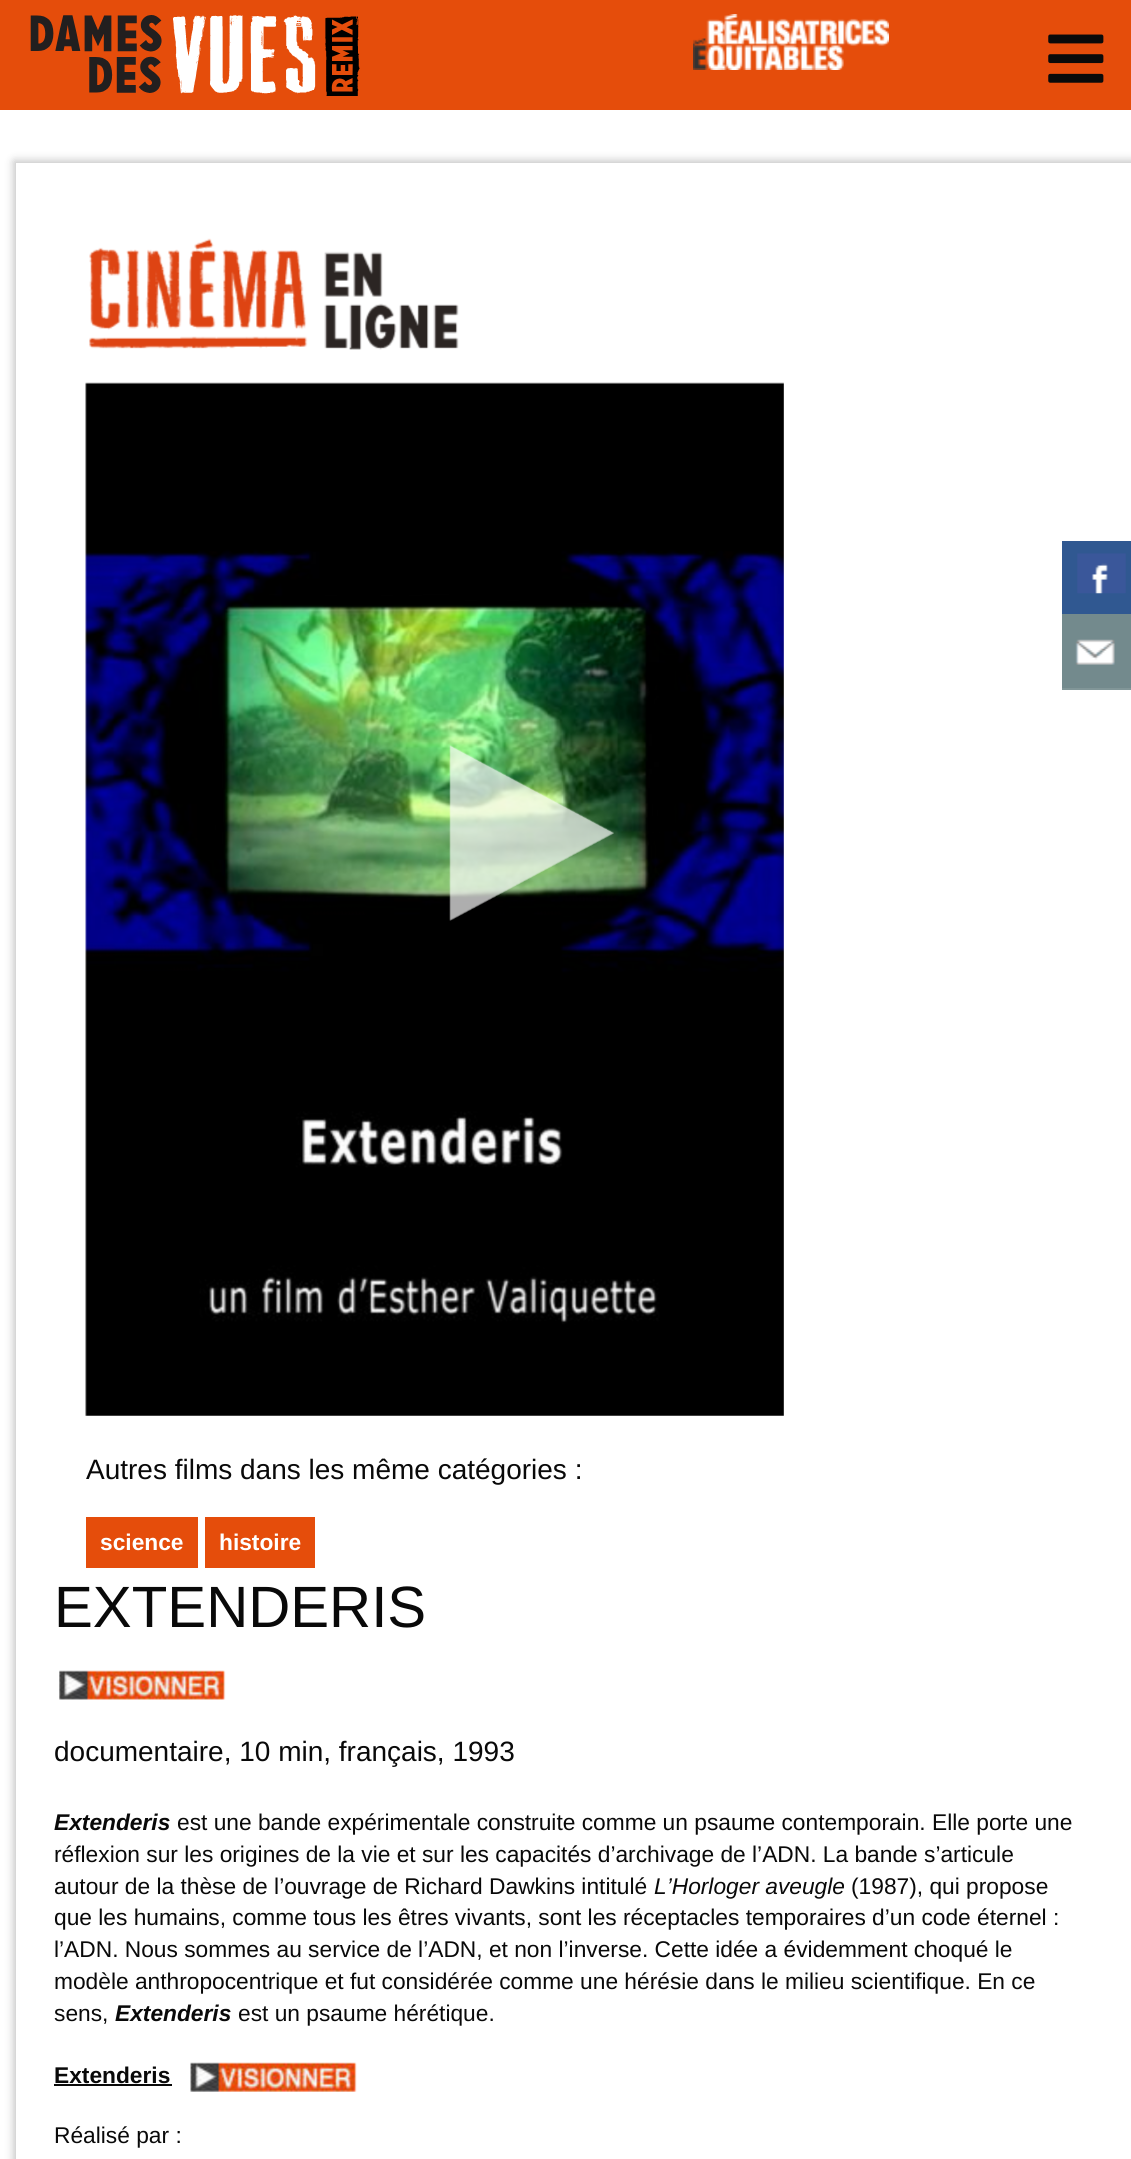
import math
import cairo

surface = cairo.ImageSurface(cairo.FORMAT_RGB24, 1131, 2159)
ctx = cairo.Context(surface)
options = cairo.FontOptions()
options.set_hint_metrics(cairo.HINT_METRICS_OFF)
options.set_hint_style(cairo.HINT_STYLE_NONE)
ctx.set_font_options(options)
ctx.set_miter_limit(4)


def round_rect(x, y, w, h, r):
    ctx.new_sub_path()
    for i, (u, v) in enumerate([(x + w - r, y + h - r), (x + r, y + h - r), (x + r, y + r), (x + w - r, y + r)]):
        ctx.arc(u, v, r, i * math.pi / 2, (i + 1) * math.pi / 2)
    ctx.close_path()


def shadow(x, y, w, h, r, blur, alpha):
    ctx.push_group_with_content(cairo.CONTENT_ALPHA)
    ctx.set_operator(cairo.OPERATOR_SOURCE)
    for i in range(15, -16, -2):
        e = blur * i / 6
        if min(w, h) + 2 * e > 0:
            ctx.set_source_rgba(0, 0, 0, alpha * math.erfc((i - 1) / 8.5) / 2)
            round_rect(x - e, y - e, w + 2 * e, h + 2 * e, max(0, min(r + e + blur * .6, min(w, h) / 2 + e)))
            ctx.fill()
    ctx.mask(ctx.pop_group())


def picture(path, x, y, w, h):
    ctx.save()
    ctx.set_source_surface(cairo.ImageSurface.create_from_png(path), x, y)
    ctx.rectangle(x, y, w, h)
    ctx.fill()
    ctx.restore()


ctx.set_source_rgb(1, 1, 1)
ctx.paint()
ctx.save()
ctx.set_fill_rule(cairo.FILL_RULE_EVEN_ODD)
ctx.new_path()
ctx.move_to(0, 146)
ctx.line_to(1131, 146)
ctx.line_to(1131, 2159)
ctx.line_to(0, 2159)
ctx.close_path()
ctx.move_to(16, 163)
ctx.line_to(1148, 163)
ctx.line_to(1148, 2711)
ctx.line_to(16, 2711)
ctx.close_path()
ctx.clip()
ctx.set_source_rgb(0, 0, 0)
shadow(14, 161, 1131, 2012, 0, 4.5, 0.25)
ctx.restore()
ctx.set_source_rgb(0.188, 0.345, 0.569)
ctx.rectangle(1062, 541, 69, 73)
ctx.fill()
picture("img1.png", 1077, 553, 49, 41)
ctx.set_source_rgb(0.451, 0.541, 0.553)
ctx.rectangle(1062, 614, 69, 74)
ctx.fill()
ctx.set_source_rgb(0.506, 0.588, 0.596)
ctx.rectangle(1062, 688, 69, 2)
ctx.fill()
picture("img2.png", 1075, 639, 40, 26)
ctx.set_source_rgb(0.898, 0.302, 0.043)
ctx.rectangle(0, 0, 1131, 110)
ctx.fill()
picture("img3.png", 30, 15, 330, 81)
picture("img4.png", 693, 14, 196, 56)
picture("img5.png", 1048, 34, 56, 49)
picture("img6.png", 89, 238, 370, 112)
picture("img7.png", 85, 382, 699, 1034)
picture("img8.png", 449, 745, 165, 176)
ctx.select_font_face("Liberation Sans")
ctx.set_font_size(28)
ctx.set_source_rgb(0.039, 0.039, 0.039)
ctx.move_to(86, 1479)
ctx.show_text("Autres films dans les même catégories :")
ctx.set_source_rgb(0.898, 0.302, 0.043)
ctx.rectangle(86, 1517, 112, 51)
ctx.fill()
ctx.select_font_face("Liberation Sans", cairo.FONT_SLANT_NORMAL, cairo.FONT_WEIGHT_BOLD)
ctx.set_font_size(22.75)
ctx.set_source_rgb(1, 1, 1)
ctx.move_to(100, 1550)
ctx.show_text("science")
ctx.set_source_rgb(0.898, 0.302, 0.043)
ctx.rectangle(205, 1517, 110, 51)
ctx.fill()
ctx.set_source_rgb(1, 1, 1)
ctx.move_to(219, 1550)
ctx.show_text("histoire")
ctx.select_font_face("Liberation Sans")
ctx.set_font_size(58.25)
ctx.set_source_rgb(0.039, 0.039, 0.039)
ctx.move_to(54, 1627)
ctx.show_text("EXTENDERIS")
picture("img9.png", 59, 1670, 167, 30)
ctx.set_font_size(28)
ctx.move_to(54, 1761)
ctx.show_text("documentaire, 10 min, français, 1993")
ctx.select_font_face("Liberation Sans", cairo.FONT_SLANT_ITALIC, cairo.FONT_WEIGHT_BOLD)
ctx.set_font_size(22.75)
ctx.move_to(54, 1830)
ctx.show_text("Extenderis")
ctx.select_font_face("Liberation Sans")
ctx.move_to(177, 1830)
ctx.show_text("est une bande expérimentale construite comme un psaume contemporain. Elle porte une")
ctx.move_to(54, 1862)
ctx.show_text("réflexion sur les origines de la vie et sur les capacités d’archivage de l’ADN. La bande s’articule")
ctx.move_to(54, 1894)
ctx.show_text("autour de la thèse de l’ouvrage de Richard Dawkins intitulé")
ctx.select_font_face("Liberation Sans", cairo.FONT_SLANT_ITALIC)
ctx.move_to(654, 1894)
ctx.show_text("L’Horloger aveugle")
ctx.select_font_face("Liberation Sans")
ctx.move_to(851, 1894)
ctx.show_text("(1987), qui propose")
ctx.move_to(54, 1925)
ctx.show_text("que les humains, comme tous les êtres vivants, sont les réceptacles temporaires d’un code éternel :")
ctx.move_to(54, 1957)
ctx.show_text("l’ADN. Nous sommes au service de l’ADN, et non l’inverse. Cette idée a évidemment choqué le")
ctx.move_to(54, 1989)
ctx.show_text("modèle anthropocentrique et fut considérée comme une hérésie dans le milieu scientifique. En ce")
ctx.move_to(54, 2021)
ctx.show_text("sens,")
ctx.select_font_face("Liberation Sans", cairo.FONT_SLANT_ITALIC, cairo.FONT_WEIGHT_BOLD)
ctx.move_to(115, 2021)
ctx.show_text("Extenderis")
ctx.select_font_face("Liberation Sans")
ctx.move_to(238, 2021)
ctx.show_text("est un psaume hérétique.")
ctx.select_font_face("Liberation Sans", cairo.FONT_SLANT_NORMAL, cairo.FONT_WEIGHT_BOLD)
ctx.move_to(54, 2083)
ctx.show_text("Extenderis")
ctx.rectangle(54, 2084, 118, 2)
ctx.fill()
picture("img10.png", 190, 2062, 167, 30)
ctx.select_font_face("Liberation Sans")
ctx.move_to(54, 2143)
ctx.show_text("Réalisé par :")
surface.write_to_png("page.png")
